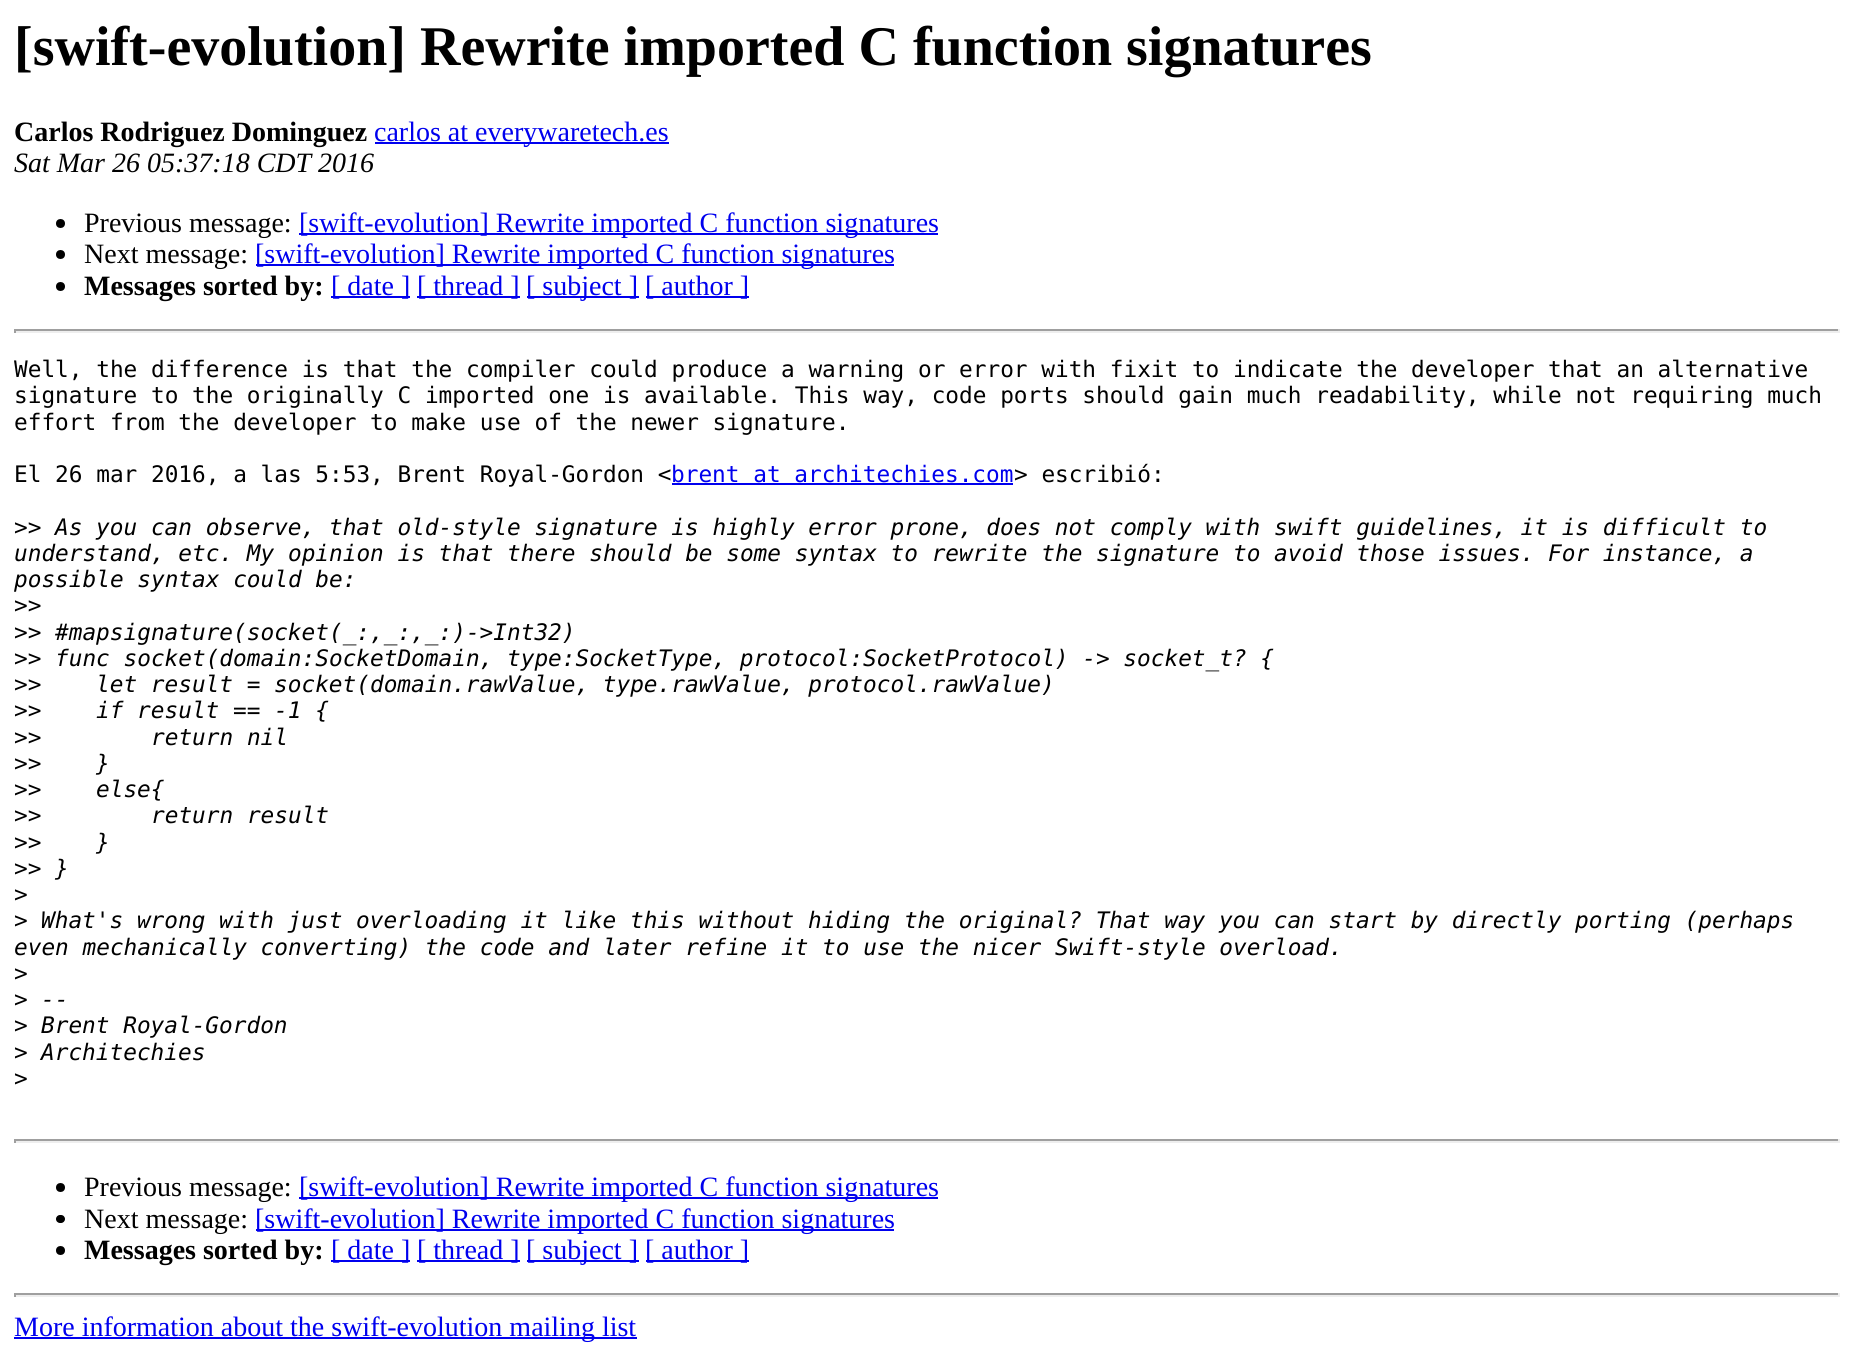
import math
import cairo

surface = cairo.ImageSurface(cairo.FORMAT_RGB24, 1852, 1361)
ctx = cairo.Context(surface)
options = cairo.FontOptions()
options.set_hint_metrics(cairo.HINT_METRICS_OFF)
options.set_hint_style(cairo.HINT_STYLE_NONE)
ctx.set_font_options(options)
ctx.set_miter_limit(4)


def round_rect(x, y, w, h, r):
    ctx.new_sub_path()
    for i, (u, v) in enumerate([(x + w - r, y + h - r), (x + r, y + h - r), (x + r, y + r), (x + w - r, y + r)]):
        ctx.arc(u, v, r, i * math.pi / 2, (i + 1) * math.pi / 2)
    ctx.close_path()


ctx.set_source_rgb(1, 1, 1)
ctx.paint()
ctx.select_font_face("Liberation Serif", cairo.FONT_SLANT_NORMAL, cairo.FONT_WEIGHT_BOLD)
ctx.set_font_size(56)
ctx.set_source_rgb(0, 0, 0)
ctx.move_to(14, 65)
ctx.show_text("[swift-evolution] Rewrite imported C function signatures")
ctx.set_font_size(28)
ctx.move_to(14, 141)
ctx.show_text("Carlos Rodriguez Dominguez")
ctx.set_source_rgb(0, 0, 0.933)
ctx.rectangle(375, 142, 294, 2)
ctx.fill()
ctx.select_font_face("Liberation Serif")
ctx.move_to(374, 141)
ctx.show_text("carlos at everywaretech.es")
ctx.select_font_face("Liberation Serif", cairo.FONT_SLANT_ITALIC)
ctx.set_source_rgb(0, 0, 0)
ctx.move_to(14, 172)
ctx.show_text("Sat Mar 26 05:37:18 CDT 2016")
ctx.new_path()
ctx.arc(60.5, 223.5, 4.5, 0, 2 * math.pi)
ctx.fill()
ctx.select_font_face("Liberation Serif")
ctx.move_to(84, 232)
ctx.show_text("Previous message:")
ctx.set_source_rgb(0, 0, 0.933)
ctx.rectangle(299, 233, 639, 2)
ctx.fill()
ctx.move_to(299, 232)
ctx.show_text("[swift-evolution] Rewrite imported C function signatures")
ctx.set_source_rgb(0, 0, 0)
ctx.new_path()
ctx.arc(60.5, 254.5, 4.5, 0, 2 * math.pi)
ctx.fill()
ctx.move_to(84, 263)
ctx.show_text("Next message:")
ctx.set_source_rgb(0, 0, 0.933)
ctx.rectangle(256, 264, 638, 2)
ctx.fill()
ctx.move_to(255, 263)
ctx.show_text("[swift-evolution] Rewrite imported C function signatures")
ctx.set_source_rgb(0, 0, 0)
ctx.new_path()
ctx.arc(60.5, 286.5, 4.5, 0, 2 * math.pi)
ctx.fill()
ctx.select_font_face("Liberation Serif", cairo.FONT_SLANT_NORMAL, cairo.FONT_WEIGHT_BOLD)
ctx.move_to(84, 295)
ctx.show_text("Messages sorted by:")
ctx.set_source_rgb(0, 0, 0.933)
ctx.rectangle(331, 296, 79, 2)
ctx.fill()
ctx.select_font_face("Liberation Serif")
ctx.move_to(331, 295)
ctx.show_text("[ date ]")
ctx.rectangle(417, 296, 103, 2)
ctx.fill()
ctx.move_to(417, 295)
ctx.show_text("[ thread ]")
ctx.rectangle(527, 296, 112, 2)
ctx.fill()
ctx.move_to(526, 295)
ctx.show_text("[ subject ]")
ctx.rectangle(646, 296, 103, 2)
ctx.fill()
ctx.move_to(645, 295)
ctx.show_text("[ author ]")
ctx.set_source_rgb(0.624, 0.624, 0.624)
ctx.rectangle(14, 329, 1825, 2)
ctx.fill()
ctx.set_source_rgb(0.933, 0.933, 0.933)
ctx.rectangle(1838, 329, 2, 4)
ctx.fill()
ctx.rectangle(14, 331, 1825, 2)
ctx.fill()
ctx.set_source_rgb(0.624, 0.624, 0.624)
ctx.rectangle(14, 329, 2, 4)
ctx.fill()
ctx.select_font_face("DejaVu Sans Mono")
ctx.set_font_size(22.75)
ctx.set_source_rgb(0, 0, 0)
ctx.move_to(14, 377)
ctx.show_text("Well, the difference is that the compiler could produce a warning or error with fixit to indicate the developer that an alternative")
ctx.move_to(14, 403)
ctx.show_text("signature to the originally C imported one is available. This way, code ports should gain much readability, while not requiring much")
ctx.move_to(14, 430)
ctx.show_text("effort from the developer to make use of the newer signature.")
ctx.move_to(14, 482)
ctx.show_text("El 26 mar 2016, a las 5:53, Brent Royal-Gordon <")
ctx.set_source_rgb(0, 0, 0.933)
ctx.move_to(671, 482)
ctx.show_text("brent at architechies.com")
ctx.rectangle(672, 483, 341, 2)
ctx.fill()
ctx.set_source_rgb(0, 0, 0)
ctx.move_to(1014, 482)
ctx.show_text("> escribió:")
ctx.move_to(14, 535)
ctx.show_text(">>")
ctx.select_font_face("DejaVu Sans Mono", cairo.FONT_SLANT_ITALIC)
ctx.move_to(55, 535)
ctx.show_text("As you can observe, that old-style signature is highly error prone, does not comply with swift guidelines, it is difficult to")
ctx.move_to(14, 561)
ctx.show_text("understand, etc. My opinion is that there should be some syntax to rewrite the signature to avoid those issues. For instance, a")
ctx.move_to(14, 587)
ctx.show_text("possible syntax could be:")
ctx.select_font_face("DejaVu Sans Mono")
ctx.move_to(14, 613)
ctx.show_text(">>")
ctx.move_to(14, 640)
ctx.show_text(">>")
ctx.select_font_face("DejaVu Sans Mono", cairo.FONT_SLANT_ITALIC)
ctx.move_to(55, 640)
ctx.show_text("#mapsignature(socket(_:,_:,_:)->Int32)")
ctx.select_font_face("DejaVu Sans Mono")
ctx.move_to(14, 666)
ctx.show_text(">>")
ctx.select_font_face("DejaVu Sans Mono", cairo.FONT_SLANT_ITALIC)
ctx.move_to(55, 666)
ctx.show_text("func socket(domain:SocketDomain, type:SocketType, protocol:SocketProtocol) -> socket_t? {")
ctx.select_font_face("DejaVu Sans Mono")
ctx.move_to(14, 692)
ctx.show_text(">>")
ctx.select_font_face("DejaVu Sans Mono", cairo.FONT_SLANT_ITALIC)
ctx.move_to(96, 692)
ctx.show_text("let result = socket(domain.rawValue, type.rawValue, protocol.rawValue)")
ctx.select_font_face("DejaVu Sans Mono")
ctx.move_to(14, 718)
ctx.show_text(">>")
ctx.select_font_face("DejaVu Sans Mono", cairo.FONT_SLANT_ITALIC)
ctx.move_to(96, 718)
ctx.show_text("if result == -1 {")
ctx.select_font_face("DejaVu Sans Mono")
ctx.move_to(14, 745)
ctx.show_text(">>")
ctx.select_font_face("DejaVu Sans Mono", cairo.FONT_SLANT_ITALIC)
ctx.move_to(151, 745)
ctx.show_text("return nil")
ctx.select_font_face("DejaVu Sans Mono")
ctx.move_to(14, 771)
ctx.show_text(">>")
ctx.select_font_face("DejaVu Sans Mono", cairo.FONT_SLANT_ITALIC)
ctx.move_to(96, 771)
ctx.show_text("}")
ctx.select_font_face("DejaVu Sans Mono")
ctx.move_to(14, 797)
ctx.show_text(">>")
ctx.select_font_face("DejaVu Sans Mono", cairo.FONT_SLANT_ITALIC)
ctx.move_to(96, 797)
ctx.show_text("else{")
ctx.select_font_face("DejaVu Sans Mono")
ctx.move_to(14, 823)
ctx.show_text(">>")
ctx.select_font_face("DejaVu Sans Mono", cairo.FONT_SLANT_ITALIC)
ctx.move_to(151, 823)
ctx.show_text("return result")
ctx.select_font_face("DejaVu Sans Mono")
ctx.move_to(14, 850)
ctx.show_text(">>")
ctx.select_font_face("DejaVu Sans Mono", cairo.FONT_SLANT_ITALIC)
ctx.move_to(96, 850)
ctx.show_text("}")
ctx.select_font_face("DejaVu Sans Mono")
ctx.move_to(14, 876)
ctx.show_text(">>")
ctx.select_font_face("DejaVu Sans Mono", cairo.FONT_SLANT_ITALIC)
ctx.move_to(55, 876)
ctx.show_text("}")
ctx.select_font_face("DejaVu Sans Mono")
ctx.move_to(14, 902)
ctx.show_text(">")
ctx.move_to(14, 928)
ctx.show_text(">")
ctx.select_font_face("DejaVu Sans Mono", cairo.FONT_SLANT_ITALIC)
ctx.move_to(41, 928)
ctx.show_text("What's wrong with just overloading it like this without hiding the original? That way you can start by directly porting (perhaps")
ctx.move_to(14, 955)
ctx.show_text("even mechanically converting) the code and later refine it to use the nicer Swift-style overload.")
ctx.select_font_face("DejaVu Sans Mono")
ctx.move_to(14, 981)
ctx.show_text(">")
ctx.move_to(14, 1007)
ctx.show_text(">")
ctx.select_font_face("DejaVu Sans Mono", cairo.FONT_SLANT_ITALIC)
ctx.move_to(41, 1007)
ctx.show_text("--")
ctx.select_font_face("DejaVu Sans Mono")
ctx.move_to(14, 1033)
ctx.show_text(">")
ctx.select_font_face("DejaVu Sans Mono", cairo.FONT_SLANT_ITALIC)
ctx.move_to(41, 1033)
ctx.show_text("Brent Royal-Gordon")
ctx.select_font_face("DejaVu Sans Mono")
ctx.move_to(14, 1060)
ctx.show_text(">")
ctx.select_font_face("DejaVu Sans Mono", cairo.FONT_SLANT_ITALIC)
ctx.move_to(41, 1060)
ctx.show_text("Architechies")
ctx.select_font_face("DejaVu Sans Mono")
ctx.move_to(14, 1086)
ctx.show_text(">")
ctx.set_source_rgb(0.624, 0.624, 0.624)
ctx.rectangle(14, 1139, 1825, 2)
ctx.fill()
ctx.set_source_rgb(0.933, 0.933, 0.933)
ctx.rectangle(1838, 1139, 2, 4)
ctx.fill()
ctx.rectangle(14, 1141, 1825, 2)
ctx.fill()
ctx.set_source_rgb(0.624, 0.624, 0.624)
ctx.rectangle(14, 1139, 2, 4)
ctx.fill()
ctx.set_source_rgb(0, 0, 0)
ctx.arc(60.5, 1187.5, 4.5, 0, 2 * math.pi)
ctx.fill()
ctx.select_font_face("Liberation Serif")
ctx.set_font_size(28)
ctx.move_to(84, 1196)
ctx.show_text("Previous message:")
ctx.set_source_rgb(0, 0, 0.933)
ctx.rectangle(299, 1197, 639, 2)
ctx.fill()
ctx.move_to(299, 1196)
ctx.show_text("[swift-evolution] Rewrite imported C function signatures")
ctx.set_source_rgb(0, 0, 0)
round_rect(56, 1215, 9, 8, 4)
ctx.fill()
ctx.move_to(84, 1228)
ctx.show_text("Next message:")
ctx.set_source_rgb(0, 0, 0.933)
ctx.rectangle(256, 1229, 638, 2)
ctx.fill()
ctx.move_to(255, 1228)
ctx.show_text("[swift-evolution] Rewrite imported C function signatures")
ctx.set_source_rgb(0, 0, 0)
ctx.new_path()
ctx.arc(60.5, 1250.5, 4.5, 0, 2 * math.pi)
ctx.fill()
ctx.select_font_face("Liberation Serif", cairo.FONT_SLANT_NORMAL, cairo.FONT_WEIGHT_BOLD)
ctx.move_to(84, 1259)
ctx.show_text("Messages sorted by:")
ctx.set_source_rgb(0, 0, 0.933)
ctx.rectangle(331, 1260, 79, 2)
ctx.fill()
ctx.select_font_face("Liberation Serif")
ctx.move_to(331, 1259)
ctx.show_text("[ date ]")
ctx.rectangle(417, 1260, 103, 2)
ctx.fill()
ctx.move_to(417, 1259)
ctx.show_text("[ thread ]")
ctx.rectangle(527, 1260, 112, 2)
ctx.fill()
ctx.move_to(526, 1259)
ctx.show_text("[ subject ]")
ctx.rectangle(646, 1260, 103, 2)
ctx.fill()
ctx.move_to(645, 1259)
ctx.show_text("[ author ]")
ctx.set_source_rgb(0.624, 0.624, 0.624)
ctx.rectangle(14, 1293, 1825, 2)
ctx.fill()
ctx.set_source_rgb(0.933, 0.933, 0.933)
ctx.rectangle(1838, 1293, 2, 4)
ctx.fill()
ctx.rectangle(14, 1295, 1825, 2)
ctx.fill()
ctx.set_source_rgb(0.624, 0.624, 0.624)
ctx.rectangle(14, 1293, 2, 4)
ctx.fill()
ctx.set_source_rgb(0, 0, 0.933)
ctx.rectangle(14, 1337, 623, 2)
ctx.fill()
ctx.move_to(14, 1336)
ctx.show_text("More information about the swift-evolution mailing list")
surface.write_to_png("page.png")
